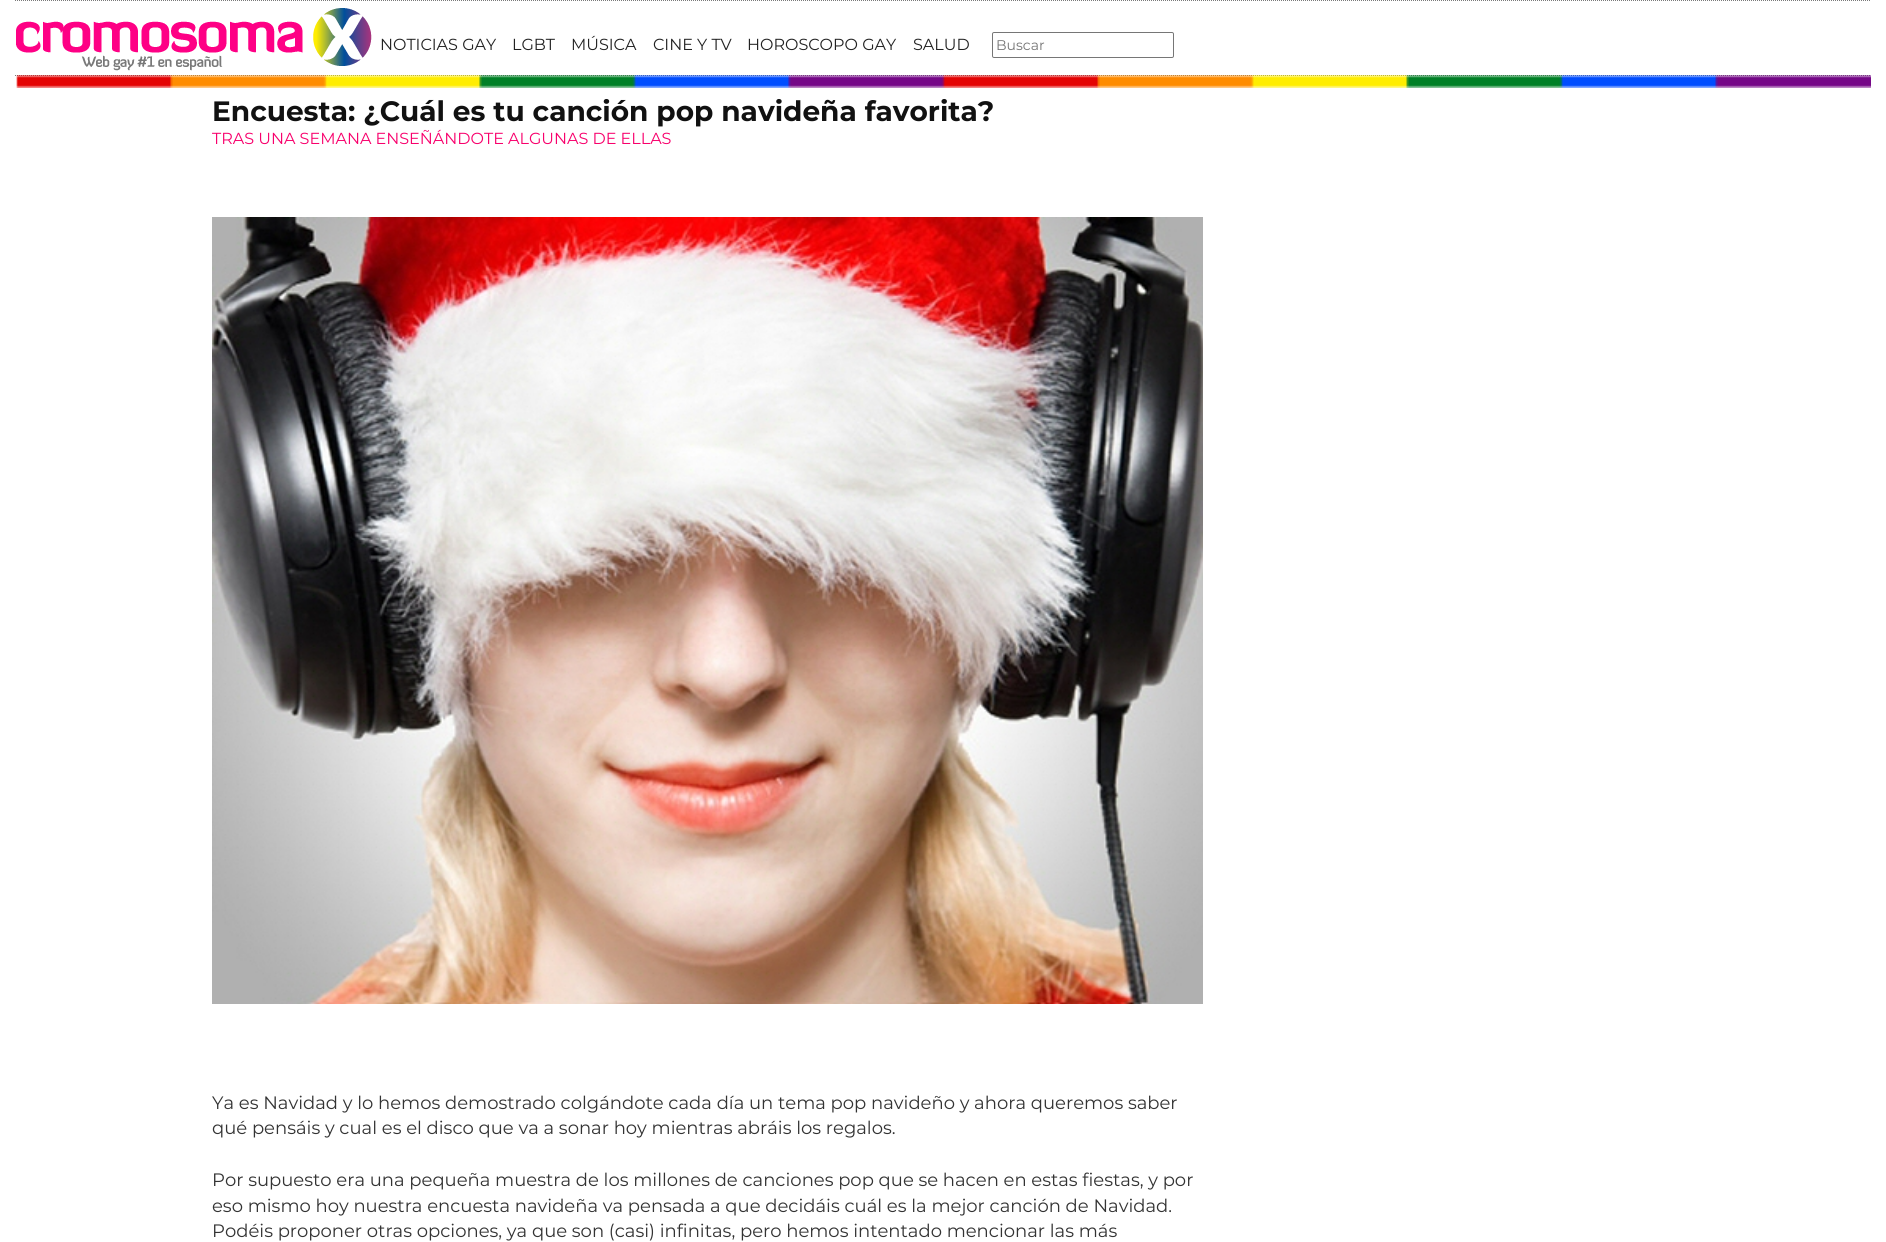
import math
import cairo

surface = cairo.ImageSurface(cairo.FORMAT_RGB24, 1886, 1242)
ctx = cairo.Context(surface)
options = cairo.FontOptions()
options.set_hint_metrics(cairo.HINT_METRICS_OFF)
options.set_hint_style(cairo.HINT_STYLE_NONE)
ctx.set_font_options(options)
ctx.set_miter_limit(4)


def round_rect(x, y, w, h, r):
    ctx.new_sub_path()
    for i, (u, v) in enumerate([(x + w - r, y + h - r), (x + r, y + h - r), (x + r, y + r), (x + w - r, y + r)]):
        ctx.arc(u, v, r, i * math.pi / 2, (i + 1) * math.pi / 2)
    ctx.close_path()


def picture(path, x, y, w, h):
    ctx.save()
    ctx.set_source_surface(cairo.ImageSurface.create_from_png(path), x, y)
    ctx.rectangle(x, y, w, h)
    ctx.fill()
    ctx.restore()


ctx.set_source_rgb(1, 1, 1)
ctx.paint()
ctx.new_path()
ctx.move_to(15, 0.5)
ctx.line_to(1871, 0.5)
ctx.set_source_rgb(0.475, 0.475, 0.475)
ctx.set_line_width(1)
ctx.set_dash([1, 1])
ctx.stroke()
ctx.new_path()
ctx.move_to(15, 75.5)
ctx.line_to(1871, 75.5)
ctx.stroke()
picture("img1.png", 16, 8, 356, 63)
ctx.select_font_face("Montserrat")
ctx.set_font_size(16)
ctx.set_source_rgb(0.133, 0.133, 0.133)
ctx.move_to(380, 50)
ctx.show_text("NOTICIAS GAY")
ctx.move_to(512, 50)
ctx.show_text("LGBT")
ctx.move_to(571, 50)
ctx.show_text("MÚSICA")
ctx.move_to(653, 50)
ctx.show_text("CINE Y TV")
ctx.move_to(747, 50)
ctx.show_text("HOROSCOPO GAY")
ctx.move_to(913, 50)
ctx.show_text("SALUD")
round_rect(992.5, 32.5, 181, 25, 1.5)
ctx.set_source_rgb(0.463, 0.463, 0.463)
ctx.set_dash([])
ctx.stroke()
ctx.set_font_size(14)
ctx.set_source_rgb(0.459, 0.459, 0.459)
ctx.move_to(996, 50)
ctx.show_text("Buscar")
picture("img2.png", 16, 75, 1855, 13)
ctx.select_font_face("Montserrat", cairo.FONT_SLANT_NORMAL, cairo.FONT_WEIGHT_BOLD)
ctx.set_font_size(28)
ctx.set_source_rgb(0.067, 0.067, 0.067)
ctx.move_to(212, 121)
ctx.show_text("Encuesta: ¿Cuál es tu canción pop navideña favorita?")
ctx.select_font_face("Montserrat")
ctx.set_font_size(16)
ctx.set_source_rgb(0.969, 0, 0.424)
ctx.move_to(212, 144)
ctx.show_text("TRAS UNA SEMANA ENSEÑÁNDOTE ALGUNAS DE ELLAS")
picture("img3.png", 212, 217, 991, 787)
ctx.set_font_size(18)
ctx.set_source_rgb(0.2, 0.2, 0.2)
ctx.move_to(212, 1109)
ctx.show_text("Ya es Navidad y lo hemos demostrado colgándote cada día un tema pop navideño y ahora queremos saber")
ctx.move_to(212, 1134)
ctx.show_text("qué pensáis y cual es el disco que va a sonar hoy mientras abráis los regalos.")
ctx.move_to(212, 1186)
ctx.show_text("Por supuesto era una pequeña muestra de los millones de canciones pop que se hacen en estas fiestas, y por")
ctx.move_to(212, 1212)
ctx.show_text("eso mismo hoy nuestra encuesta navideña va pensada a que decidáis cuál es la mejor canción de Navidad.")
ctx.move_to(212, 1237)
ctx.show_text("Podéis proponer otras opciones, ya que son (casi) infinitas, pero hemos intentado mencionar las más")
surface.write_to_png("page.png")
